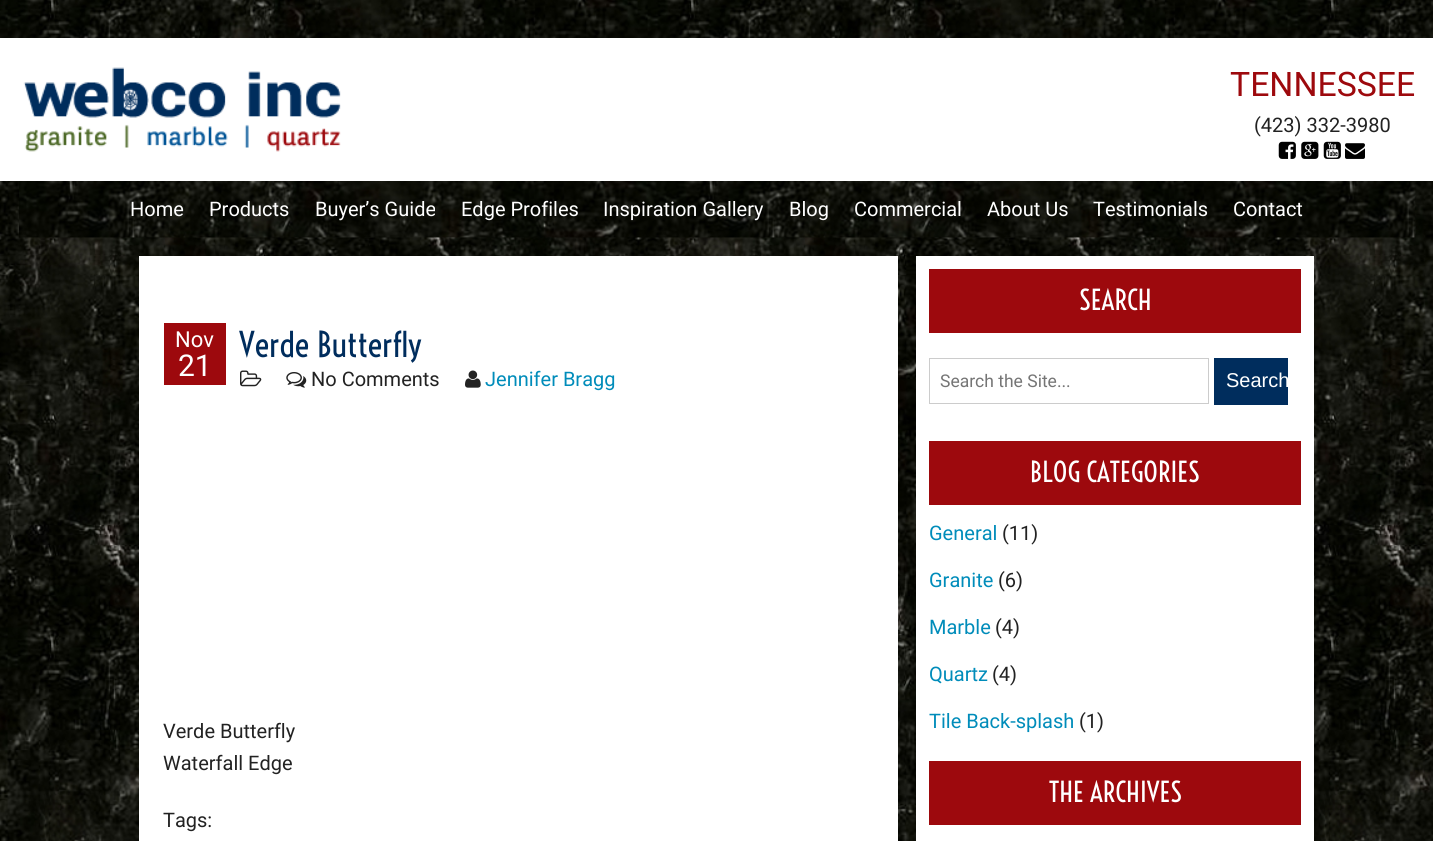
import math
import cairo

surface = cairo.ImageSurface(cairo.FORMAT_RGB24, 1433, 841)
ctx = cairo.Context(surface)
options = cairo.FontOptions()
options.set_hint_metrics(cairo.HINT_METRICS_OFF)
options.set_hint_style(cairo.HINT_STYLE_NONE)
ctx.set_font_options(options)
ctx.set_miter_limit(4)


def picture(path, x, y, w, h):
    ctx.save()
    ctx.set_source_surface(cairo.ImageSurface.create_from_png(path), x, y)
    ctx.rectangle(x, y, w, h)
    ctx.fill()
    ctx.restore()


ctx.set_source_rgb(1, 1, 1)
ctx.paint()
picture("img1.png", 0, 0, 1433, 841)
ctx.set_source_rgb(1, 1, 1)
ctx.rectangle(0, 38, 1433, 143)
ctx.fill()
picture("img2.png", 23, 67, 318, 85)
ctx.select_font_face("Roboto")
ctx.set_font_size(33.75)
ctx.set_source_rgb(0.616, 0.039, 0.051)
ctx.move_to(1230, 96)
ctx.show_text("TENNESSEE")
ctx.set_font_size(20)
ctx.set_source_rgb(0.133, 0.133, 0.133)
ctx.move_to(1254, 132)
ctx.show_text("(423) 332-3980")
picture("img3.png", 1278, 141, 18, 18)
picture("img4.png", 1301, 141, 18, 18)
picture("img5.png", 1323, 141, 18, 18)
picture("img6.png", 1345, 143, 20, 16)
picture("img7.png", 19, 181, 1397, 57)
ctx.set_source_rgb(1, 1, 1)
ctx.move_to(130, 216)
ctx.show_text("Home")
ctx.move_to(209, 216)
ctx.show_text("Products")
ctx.move_to(315, 216)
ctx.show_text("Buyer’s Guide")
ctx.move_to(461, 216)
ctx.show_text("Edge Profiles")
ctx.move_to(603, 216)
ctx.show_text("Inspiration Gallery")
ctx.move_to(789, 216)
ctx.show_text("Blog")
ctx.move_to(854, 216)
ctx.show_text("Commercial")
ctx.move_to(987, 216)
ctx.show_text("About Us")
ctx.move_to(1093, 216)
ctx.show_text("Testimonials")
ctx.move_to(1233, 216)
ctx.show_text("Contact")
ctx.rectangle(139, 256, 759, 585)
ctx.fill()
ctx.set_source_rgb(0.616, 0.039, 0.051)
ctx.rectangle(164, 323, 62, 62)
ctx.fill()
ctx.set_font_size(22)
ctx.set_source_rgb(1, 1, 1)
ctx.move_to(175, 347)
ctx.show_text("Nov")
ctx.set_font_size(30)
ctx.move_to(178, 376)
ctx.show_text("21")
ctx.select_font_face("Voltaire")
ctx.set_font_size(33.75)
ctx.set_source_rgb(0, 0.176, 0.365)
ctx.move_to(239, 357)
ctx.show_text("Verde Butterfly")
picture("img8.png", 240, 370, 22, 17)
picture("img9.png", 286, 372, 21, 16)
ctx.select_font_face("Roboto")
ctx.set_font_size(20)
ctx.set_source_rgb(0.133, 0.133, 0.133)
ctx.move_to(311, 386)
ctx.show_text("No Comments")
picture("img10.png", 465, 370, 16, 18)
ctx.set_source_rgb(0, 0.549, 0.729)
ctx.move_to(485, 386)
ctx.show_text("Jennifer Bragg")
ctx.set_source_rgb(0.133, 0.133, 0.133)
ctx.move_to(163, 738)
ctx.show_text("Verde Butterfly")
ctx.move_to(163, 770)
ctx.show_text("Waterfall Edge")
ctx.move_to(163, 827)
ctx.show_text("Tags:")
ctx.set_source_rgb(1, 1, 1)
ctx.rectangle(916, 256, 398, 585)
ctx.fill()
ctx.set_source_rgb(0.616, 0.039, 0.051)
ctx.rectangle(929, 269, 372, 64)
ctx.fill()
ctx.select_font_face("Voltaire")
ctx.set_font_size(27.5)
ctx.set_source_rgb(1, 1, 1)
ctx.move_to(1079, 310)
ctx.show_text("SEARCH")
ctx.rectangle(929.5, 358.5, 279, 45)
ctx.set_source_rgb(0.8, 0.8, 0.8)
ctx.set_line_width(1)
ctx.stroke()
ctx.select_font_face("Roboto")
ctx.set_font_size(17.5)
ctx.set_source_rgb(0.459, 0.459, 0.459)
ctx.move_to(940, 387)
ctx.show_text("Search the Site...")
ctx.set_source_rgb(0, 0.176, 0.365)
ctx.rectangle(1214, 358, 74, 47)
ctx.fill()
ctx.select_font_face("Liberation Sans")
ctx.set_font_size(20)
ctx.set_source_rgb(1, 1, 1)
ctx.move_to(1226, 387)
ctx.show_text("Search")
ctx.set_source_rgb(0.616, 0.039, 0.051)
ctx.rectangle(929, 441, 372, 64)
ctx.fill()
ctx.select_font_face("Voltaire")
ctx.set_font_size(27.5)
ctx.set_source_rgb(1, 1, 1)
ctx.move_to(1030, 482)
ctx.show_text("BLOG CATEGORIES")
ctx.select_font_face("Roboto")
ctx.set_font_size(20)
ctx.set_source_rgb(0, 0.549, 0.729)
ctx.move_to(929, 540)
ctx.show_text("General")
ctx.set_source_rgb(0.133, 0.133, 0.133)
ctx.move_to(1002, 540)
ctx.show_text("(11)")
ctx.set_source_rgb(0, 0.549, 0.729)
ctx.move_to(929, 587)
ctx.show_text("Granite")
ctx.set_source_rgb(0.133, 0.133, 0.133)
ctx.move_to(998, 587)
ctx.show_text("(6)")
ctx.set_source_rgb(0, 0.549, 0.729)
ctx.move_to(929, 634)
ctx.show_text("Marble")
ctx.set_source_rgb(0.133, 0.133, 0.133)
ctx.move_to(995, 634)
ctx.show_text("(4)")
ctx.set_source_rgb(0, 0.549, 0.729)
ctx.move_to(929, 681)
ctx.show_text("Quartz")
ctx.set_source_rgb(0.133, 0.133, 0.133)
ctx.move_to(992, 681)
ctx.show_text("(4)")
ctx.set_source_rgb(0, 0.549, 0.729)
ctx.move_to(929, 728)
ctx.show_text("Tile Back-splash")
ctx.set_source_rgb(0.133, 0.133, 0.133)
ctx.move_to(1079, 728)
ctx.show_text("(1)")
ctx.set_source_rgb(0.616, 0.039, 0.051)
ctx.rectangle(929, 761, 372, 64)
ctx.fill()
ctx.select_font_face("Voltaire")
ctx.set_font_size(27.5)
ctx.set_source_rgb(1, 1, 1)
ctx.move_to(1049, 802)
ctx.show_text("THE ARCHIVES")
surface.write_to_png("page.png")
